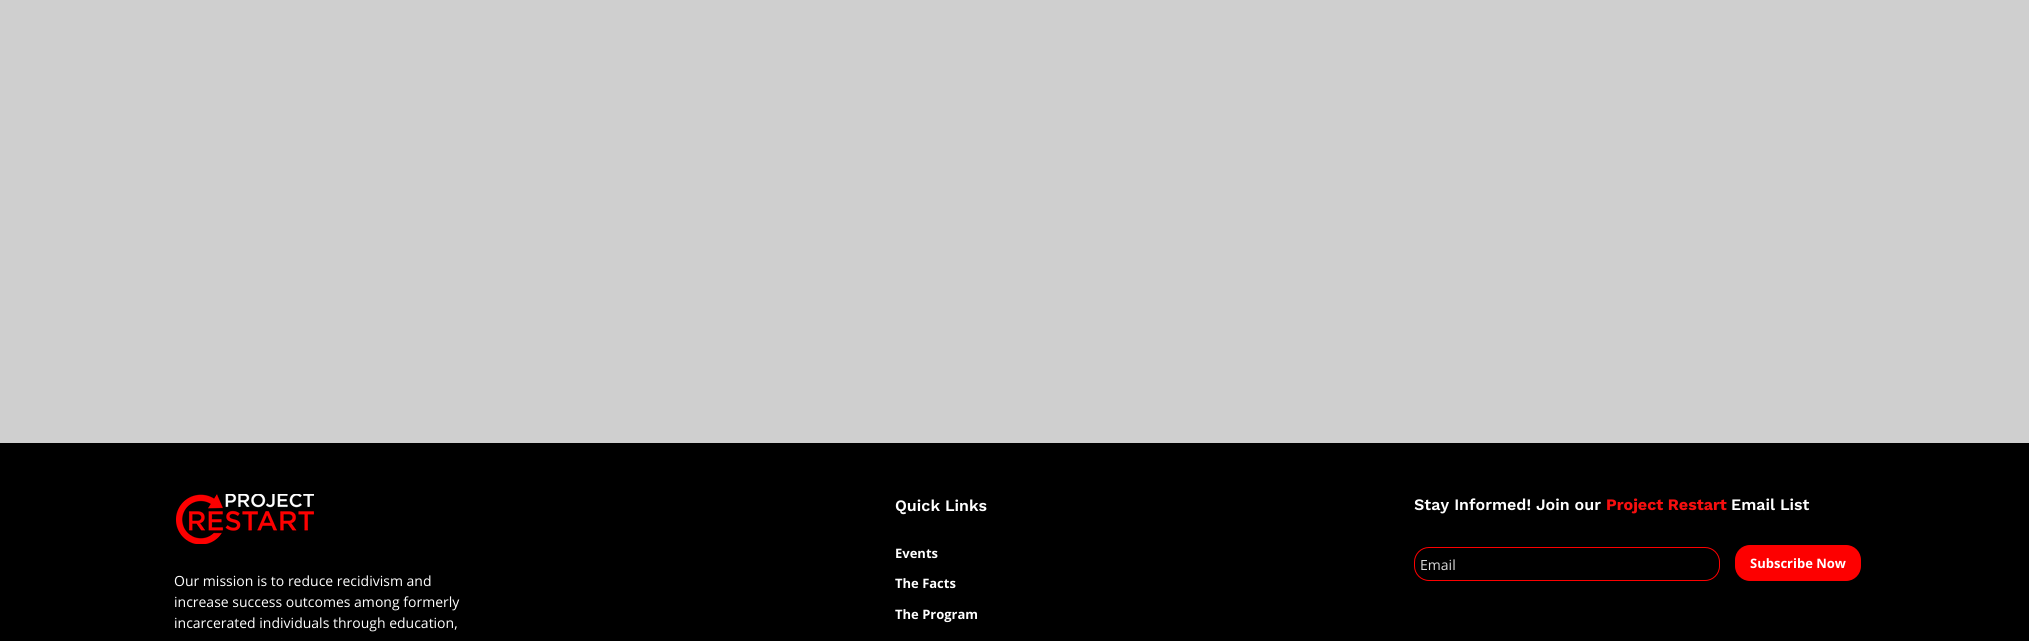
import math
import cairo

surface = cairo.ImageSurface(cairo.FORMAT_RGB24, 2029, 641)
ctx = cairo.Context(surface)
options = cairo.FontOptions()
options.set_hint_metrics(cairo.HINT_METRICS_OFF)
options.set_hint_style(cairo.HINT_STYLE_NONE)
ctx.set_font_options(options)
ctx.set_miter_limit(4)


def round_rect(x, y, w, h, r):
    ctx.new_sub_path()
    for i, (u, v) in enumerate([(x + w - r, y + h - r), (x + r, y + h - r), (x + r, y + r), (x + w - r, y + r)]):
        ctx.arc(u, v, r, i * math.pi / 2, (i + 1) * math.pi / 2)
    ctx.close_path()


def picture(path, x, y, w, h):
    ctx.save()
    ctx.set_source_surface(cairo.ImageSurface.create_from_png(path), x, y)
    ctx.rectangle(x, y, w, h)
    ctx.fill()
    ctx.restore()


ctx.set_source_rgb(0.812, 0.812, 0.812)
ctx.paint()
ctx.set_source_rgb(0, 0, 0)
ctx.rectangle(0, 443, 2029, 198)
ctx.fill()
ctx.select_font_face("Work Sans SemiBold")
ctx.set_font_size(16)
ctx.set_source_rgb(1, 1, 1)
ctx.move_to(895, 511)
ctx.show_text("Quick Links")
ctx.select_font_face("Open Sans", cairo.FONT_SLANT_NORMAL, cairo.FONT_WEIGHT_BOLD)
ctx.set_font_size(13)
ctx.move_to(895, 558)
ctx.show_text("Events")
ctx.select_font_face("Work Sans SemiBold")
ctx.set_font_size(16)
ctx.move_to(1414, 510)
ctx.show_text("Stay Informed! Join our")
ctx.select_font_face("Work Sans", cairo.FONT_SLANT_NORMAL, cairo.FONT_WEIGHT_BOLD)
ctx.set_source_rgb(0.961, 0.059, 0.059)
ctx.move_to(1606, 510)
ctx.show_text("Project Restart")
ctx.select_font_face("Work Sans SemiBold")
ctx.set_source_rgb(1, 1, 1)
ctx.move_to(1731, 510)
ctx.show_text("Email List")
round_rect(1414.5, 547.5, 305, 33, 14.5)
ctx.set_source_rgb(0.992, 0, 0)
ctx.set_line_width(1)
ctx.stroke()
ctx.select_font_face("Open Sans")
ctx.set_font_size(14)
ctx.set_source_rgb(0.859, 0.859, 0.859)
ctx.move_to(1420, 570)
ctx.show_text("Email")
ctx.set_source_rgb(0.992, 0, 0)
round_rect(1735, 545, 126, 36, 15)
ctx.fill()
ctx.select_font_face("Open Sans", cairo.FONT_SLANT_NORMAL, cairo.FONT_WEIGHT_BOLD)
ctx.set_font_size(13)
ctx.set_source_rgb(1, 1, 1)
ctx.move_to(1750, 568)
ctx.show_text("Subscribe Now")
picture("img1.png", 176, 494, 138, 50)
ctx.select_font_face("Open Sans")
ctx.set_font_size(14)
ctx.move_to(174, 586)
ctx.show_text("Our mission is to reduce recidivism and")
ctx.move_to(174, 607)
ctx.show_text("increase success outcomes among formerly")
ctx.move_to(174, 628)
ctx.show_text("incarcerated individuals through education,")
ctx.select_font_face("Open Sans", cairo.FONT_SLANT_NORMAL, cairo.FONT_WEIGHT_BOLD)
ctx.set_font_size(13)
ctx.move_to(895, 588)
ctx.show_text("The Facts")
ctx.move_to(895, 619)
ctx.show_text("The Program")
surface.write_to_png("page.png")
